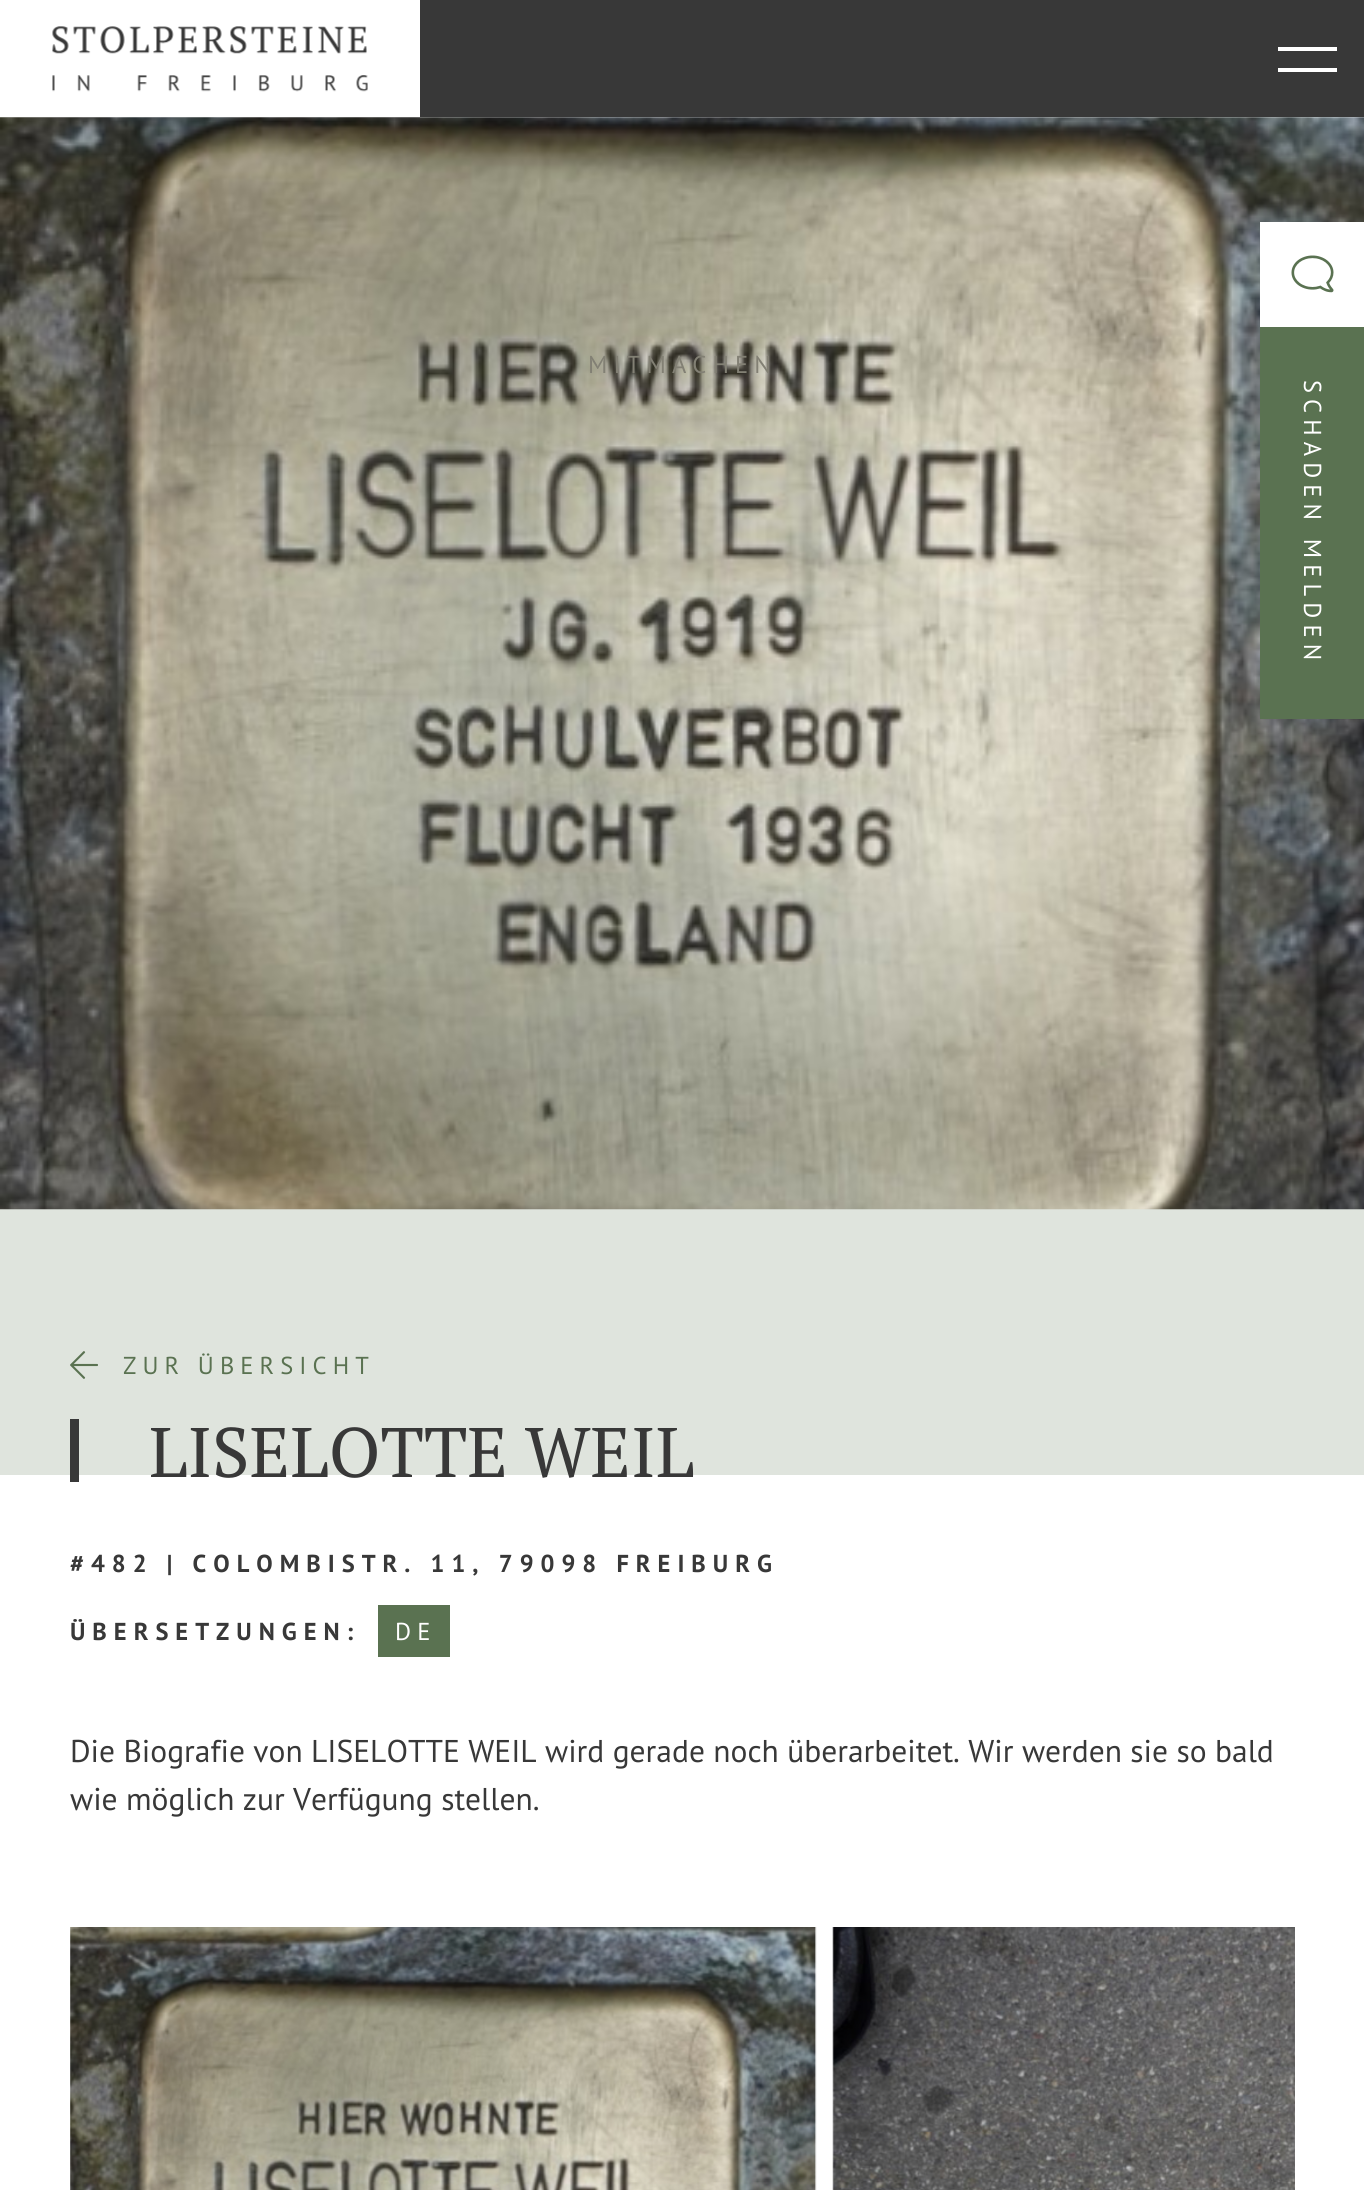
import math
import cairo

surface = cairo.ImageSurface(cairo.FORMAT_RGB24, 1364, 2190)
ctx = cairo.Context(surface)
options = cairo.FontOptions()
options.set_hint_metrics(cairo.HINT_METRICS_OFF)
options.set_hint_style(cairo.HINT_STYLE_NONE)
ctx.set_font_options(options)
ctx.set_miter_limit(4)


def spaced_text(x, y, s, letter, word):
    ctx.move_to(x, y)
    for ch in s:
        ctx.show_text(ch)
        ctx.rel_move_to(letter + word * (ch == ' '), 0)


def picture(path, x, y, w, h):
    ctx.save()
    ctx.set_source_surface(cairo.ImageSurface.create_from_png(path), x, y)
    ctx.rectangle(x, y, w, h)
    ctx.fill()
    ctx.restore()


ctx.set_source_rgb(1, 1, 1)
ctx.paint()
ctx.set_source_rgb(0.22, 0.22, 0.22)
ctx.rectangle(420, 0, 944, 117)
ctx.fill()
picture("img1.png", 52, 26, 316, 66)
ctx.set_source_rgb(1, 1, 1)
ctx.rectangle(1278, 47, 59, 4)
ctx.fill()
ctx.rectangle(1278, 68, 59, 4)
ctx.fill()
ctx.set_source_rgb(0.875, 0.894, 0.867)
ctx.rectangle(0, 1209, 1364, 266)
ctx.fill()
picture("img2.png", 0, 117, 1364, 1093)
ctx.select_font_face("PT Sans")
ctx.set_font_size(24.5)
ctx.set_source_rgb(0.51, 0.502, 0.455)
spaced_text(588, 373, "MITMACHEN", 6.1, 0)
picture("img3.png", 70, 1351, 28, 28)
ctx.set_source_rgb(0.353, 0.447, 0.318)
spaced_text(123, 1374, "ZUR ÜBERSICHT", 6.1, 0)
ctx.set_source_rgb(0.22, 0.22, 0.22)
ctx.rectangle(70, 1419, 9, 63)
ctx.fill()
ctx.select_font_face("PT Serif")
ctx.set_font_size(70)
ctx.move_to(149, 1477)
ctx.show_text("LISELOTTE WEIL")
ctx.select_font_face("PT Sans", cairo.FONT_SLANT_NORMAL, cairo.FONT_WEIGHT_BOLD)
ctx.set_font_size(24.5)
spaced_text(70, 1572, "#482 | COLOMBISTR. 11, 79098 FREIBURG", 7, 0)
spaced_text(70, 1640, "ÜBERSETZUNGEN:", 7, 0)
ctx.set_source_rgb(0.353, 0.447, 0.318)
ctx.rectangle(378, 1605, 72, 52)
ctx.fill()
ctx.select_font_face("PT Sans")
ctx.set_source_rgb(1, 1, 1)
spaced_text(395, 1640, "DE", 6.1, 0)
ctx.set_font_size(31.5)
ctx.set_source_rgb(0.22, 0.22, 0.22)
ctx.move_to(70, 1762)
ctx.show_text("Die Biografie von LISELOTTE WEIL wird gerade noch überarbeitet. Wir werden sie so bald")
ctx.move_to(70, 1810)
ctx.show_text("wie möglich zur Verfügung stellen.")
picture("img4.png", 70, 1927, 747, 263)
picture("img5.png", 832, 1927, 463, 263)
ctx.set_source_rgb(1, 1, 1)
ctx.rectangle(1260, 222, 104, 105)
ctx.fill()
picture("img6.png", 1291, 255, 43, 38)
ctx.set_source_rgb(0.353, 0.447, 0.318)
ctx.rectangle(1260, 327, 104, 392)
ctx.fill()
ctx.set_font_size(24.5)
ctx.set_source_rgb(1, 1, 1)
ctx.save()
ctx.translate(1304, 380)
ctx.rotate(90 * math.pi / 180)
spaced_text(0, 0, "SCHADEN MELDEN", 6.1, 0)
ctx.restore()
surface.write_to_png("page.png")
